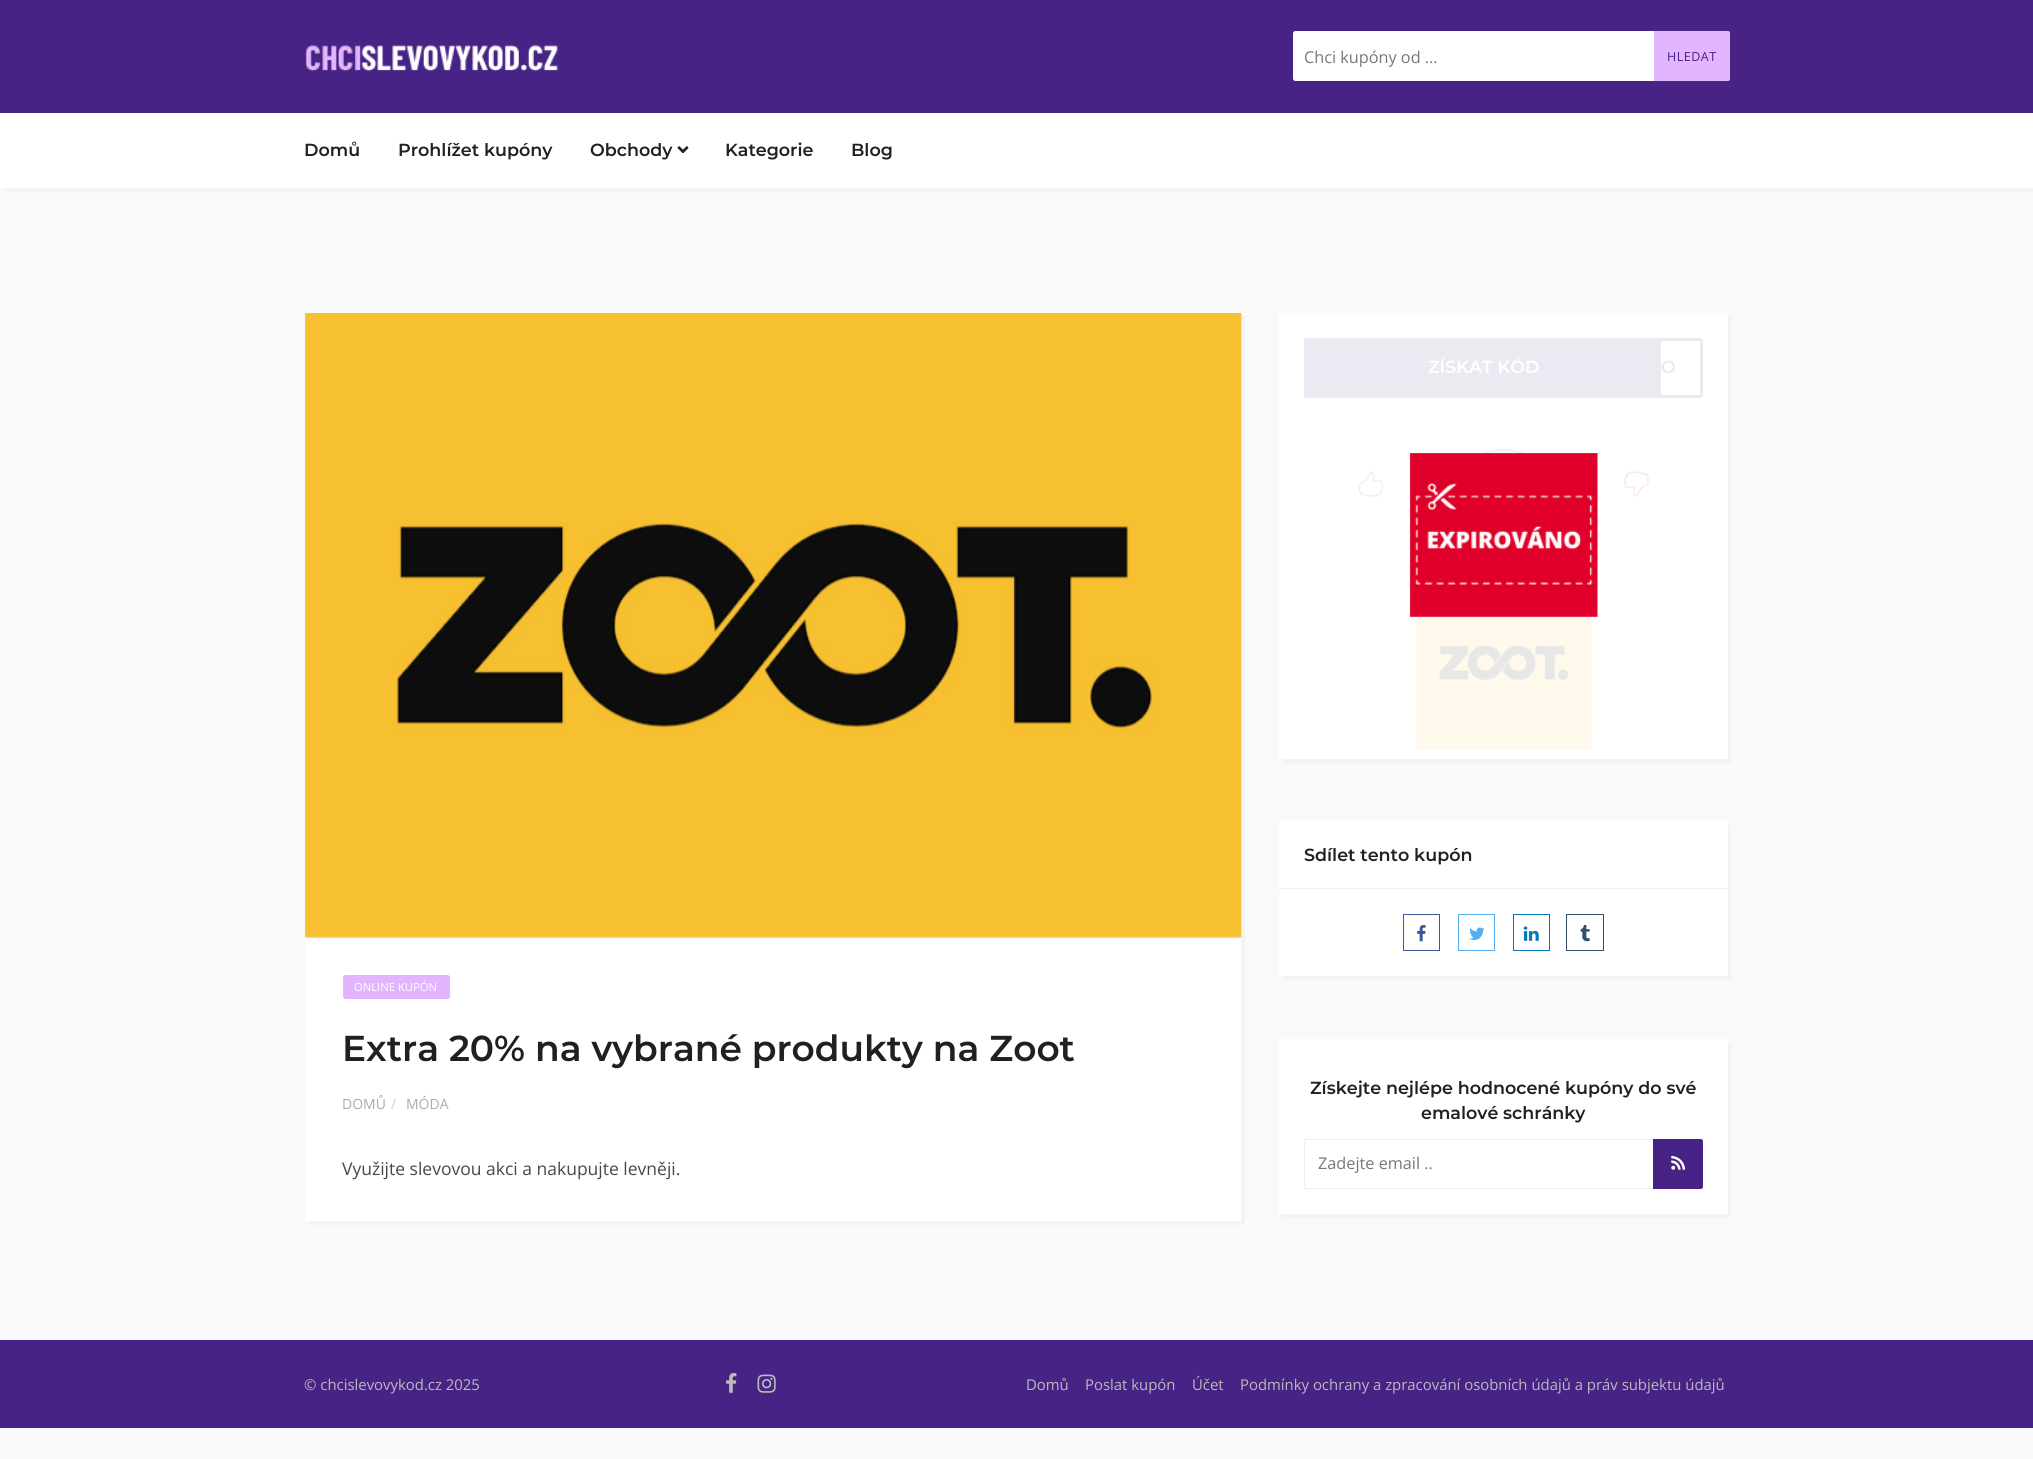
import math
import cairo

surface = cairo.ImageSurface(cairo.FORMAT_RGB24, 2033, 1459)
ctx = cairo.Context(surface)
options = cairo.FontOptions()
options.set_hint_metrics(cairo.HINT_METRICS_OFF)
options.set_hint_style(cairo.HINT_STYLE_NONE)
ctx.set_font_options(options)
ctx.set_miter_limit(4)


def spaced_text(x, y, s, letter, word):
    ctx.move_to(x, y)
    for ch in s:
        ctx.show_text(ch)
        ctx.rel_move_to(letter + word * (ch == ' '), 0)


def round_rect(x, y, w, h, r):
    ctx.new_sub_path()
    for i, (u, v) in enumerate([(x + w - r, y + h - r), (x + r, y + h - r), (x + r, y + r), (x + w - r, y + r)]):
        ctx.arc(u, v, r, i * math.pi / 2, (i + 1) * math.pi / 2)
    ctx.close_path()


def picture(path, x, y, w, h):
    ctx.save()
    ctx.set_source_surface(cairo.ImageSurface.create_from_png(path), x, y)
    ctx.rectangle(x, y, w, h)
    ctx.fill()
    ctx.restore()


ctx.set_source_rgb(0.973, 0.973, 0.973)
ctx.paint()
ctx.set_source_rgb(0.275, 0.137, 0.522)
ctx.rectangle(0, 0, 2033, 113)
ctx.fill()
picture("img1.png", 305, 44, 253, 28)
ctx.set_source_rgb(1, 1, 1)
round_rect(1293, 31, 437, 50, 2.5)
ctx.fill()
ctx.select_font_face("Open Sans")
ctx.set_font_size(16.25)
ctx.set_source_rgb(0.467, 0.467, 0.467)
ctx.move_to(1304, 63)
ctx.show_text("Chci kupóny od ...")
ctx.set_source_rgb(0.89, 0.71, 1)
ctx.new_path()
ctx.move_to(1654, 31)
ctx.line_to(1727.5, 31)
ctx.curve_to(1729, 31, 1730, 32, 1730, 33.5)
ctx.line_to(1730, 78.5)
ctx.curve_to(1730, 80, 1729, 81, 1727.5, 81)
ctx.line_to(1654, 81)
ctx.close_path()
ctx.fill()
ctx.set_font_size(12.5)
ctx.set_source_rgb(0.275, 0.137, 0.522)
spaced_text(1667, 61, "HLEDAT", 0.5, 0)
ctx.set_source_rgb(0.953, 0.953, 0.953)
ctx.new_path()
ctx.move_to(4, 188)
ctx.line_to(4, 191)
ctx.line_to(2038, 191)
ctx.line_to(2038, 116)
ctx.line_to(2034, 116)
ctx.line_to(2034, 188)
ctx.close_path()
ctx.fill()
ctx.set_source_rgb(1, 1, 1)
ctx.rectangle(0, 113, 2033, 75)
ctx.fill()
ctx.select_font_face("Montserrat Thin")
ctx.set_font_size(17.5)
ctx.set_source_rgb(0.125, 0.125, 0.125)
ctx.move_to(304, 156)
ctx.show_text("Domů")
ctx.move_to(398, 156)
ctx.show_text("Prohlížet kupóny")
ctx.move_to(590, 156)
ctx.show_text("Obchody")
picture("img2.png", 677, 146, 12, 8)
ctx.move_to(725, 156)
ctx.show_text("Kategorie")
ctx.move_to(851, 156)
ctx.show_text("Blog")
ctx.set_source_rgb(0.953, 0.953, 0.953)
ctx.new_path()
ctx.move_to(309, 1221)
ctx.line_to(309, 1225)
ctx.line_to(1245, 1225)
ctx.line_to(1245, 316)
ctx.line_to(1241, 316)
ctx.line_to(1241, 1221)
ctx.close_path()
ctx.fill()
ctx.set_source_rgb(1, 1, 1)
ctx.rectangle(305, 313, 936, 908)
ctx.fill()
picture("img3.png", 304, 313, 938, 625)
ctx.set_source_rgb(0.89, 0.71, 1)
round_rect(343, 975, 107, 24, 2.5)
ctx.fill()
ctx.select_font_face("Open Sans")
ctx.set_font_size(11.25)
ctx.set_source_rgb(1, 1, 1)
ctx.move_to(354, 991)
ctx.show_text("ONLINE KUPÓN")
ctx.select_font_face("Montserrat Thin")
ctx.set_font_size(36)
ctx.set_source_rgb(0.125, 0.125, 0.125)
ctx.move_to(342, 1061)
ctx.show_text("Extra 20% na vybrané produkty na Zoot")
ctx.select_font_face("Open Sans")
ctx.set_font_size(14)
ctx.set_source_rgb(0.667, 0.667, 0.667)
ctx.move_to(342, 1109)
ctx.show_text("DOMŮ")
ctx.set_source_rgb(0.8, 0.8, 0.8)
ctx.move_to(391, 1109)
ctx.show_text("/")
ctx.set_source_rgb(0.667, 0.667, 0.667)
ctx.move_to(406, 1109)
ctx.show_text("MÓDA")
ctx.set_font_size(17.5)
ctx.set_source_rgb(0.282, 0.282, 0.282)
ctx.move_to(342, 1175)
ctx.show_text("Využijte slevovou akci a nakupujte levněji.")
ctx.set_source_rgb(0.953, 0.953, 0.953)
ctx.new_path()
ctx.move_to(1283, 759)
ctx.line_to(1283, 763)
ctx.line_to(1731, 763)
ctx.line_to(1731, 316)
ctx.line_to(1728, 316)
ctx.line_to(1728, 759)
ctx.close_path()
ctx.fill()
ctx.set_source_rgb(1, 1, 1)
ctx.rectangle(1279, 313, 449, 446)
ctx.fill()
round_rect(1305.5, 339.5, 396, 57, 1)
ctx.set_source_rgb(0.929, 0.914, 0.953)
ctx.set_line_width(3)
ctx.stroke()
round_rect(1306, 340, 355, 55, 1)
ctx.fill()
ctx.select_font_face("Montserrat Thin")
ctx.set_source_rgb(1, 1, 1)
ctx.move_to(1428, 373)
ctx.show_text("ZÍSKAT KÓD")
ctx.set_source_rgb(0.914, 0.914, 0.914)
ctx.move_to(1661, 373)
ctx.show_text("O")
picture("img4.png", 1480, 448, 48, 6)
picture("img5.png", 1358, 471, 26, 26)
picture("img6.png", 1623, 471, 26, 26)
picture("img7.png", 1415, 616, 177, 134)
picture("img8.png", 1409, 453, 189, 164)
ctx.set_source_rgb(0.953, 0.953, 0.953)
ctx.new_path()
ctx.move_to(1283, 976)
ctx.line_to(1283, 980)
ctx.line_to(1731, 980)
ctx.line_to(1731, 825)
ctx.line_to(1728, 825)
ctx.line_to(1728, 976)
ctx.close_path()
ctx.fill()
ctx.set_source_rgb(1, 1, 1)
ctx.rectangle(1279, 821, 449, 155)
ctx.fill()
ctx.set_source_rgb(0.933, 0.933, 0.933)
ctx.rectangle(1279, 888, 449, 1)
ctx.fill()
ctx.set_source_rgb(0.125, 0.125, 0.125)
ctx.move_to(1304, 861)
ctx.show_text("Sdílet tento kupón")
ctx.rectangle(1403.5, 914.5, 36, 36)
ctx.set_source_rgb(0.231, 0.349, 0.596)
ctx.set_line_width(1)
ctx.stroke()
picture("img9.png", 1417, 925, 9, 17)
ctx.rectangle(1458.5, 914.5, 36, 36)
ctx.set_source_rgb(0.333, 0.675, 0.933)
ctx.stroke()
picture("img10.png", 1469, 927, 16, 13)
ctx.rectangle(1513.5, 914.5, 36, 36)
ctx.set_source_rgb(0, 0.482, 0.71)
ctx.stroke()
picture("img11.png", 1523, 926, 16, 15)
ctx.rectangle(1566.5, 914.5, 37, 36)
ctx.set_source_rgb(0.196, 0.314, 0.427)
ctx.stroke()
picture("img12.png", 1580, 925, 10, 17)
ctx.set_source_rgb(0.953, 0.953, 0.953)
ctx.new_path()
ctx.move_to(1283, 1214)
ctx.line_to(1283, 1218)
ctx.line_to(1731, 1218)
ctx.line_to(1731, 1043)
ctx.line_to(1728, 1043)
ctx.line_to(1728, 1214)
ctx.close_path()
ctx.fill()
ctx.set_source_rgb(1, 1, 1)
ctx.rectangle(1279, 1039, 449, 175)
ctx.fill()
ctx.set_source_rgb(0.125, 0.125, 0.125)
ctx.move_to(1310, 1094)
ctx.show_text("Získejte nejlépe hodnocené kupóny do své")
ctx.move_to(1421, 1119)
ctx.show_text("emalové schránky")
round_rect(1304.5, 1139.5, 398, 49, 2)
ctx.set_source_rgb(0.933, 0.933, 0.933)
ctx.stroke()
ctx.select_font_face("Open Sans")
ctx.set_font_size(16.25)
ctx.set_source_rgb(0.467, 0.467, 0.467)
ctx.move_to(1318, 1169)
ctx.show_text("Zadejte email ..")
ctx.set_source_rgb(0.275, 0.137, 0.522)
ctx.new_path()
ctx.move_to(1653, 1139)
ctx.line_to(1700.5, 1139)
ctx.curve_to(1702, 1139, 1703, 1140, 1703, 1141.5)
ctx.line_to(1703, 1186.5)
ctx.curve_to(1703, 1188, 1702, 1189, 1700.5, 1189)
ctx.line_to(1653, 1189)
ctx.close_path()
ctx.fill()
picture("img13.png", 1671, 1156, 14, 14)
ctx.rectangle(0, 1340, 2033, 88)
ctx.fill()
ctx.set_font_size(14.9)
ctx.set_source_rgb(0.733, 0.733, 0.733)
ctx.move_to(304, 1390)
ctx.show_text("© chcislevovykod.cz 2025")
picture("img14.png", 726, 1373, 11, 20)
picture("img15.png", 757, 1374, 19, 19)
ctx.move_to(1026, 1390)
ctx.show_text("Domů")
ctx.move_to(1085, 1390)
ctx.show_text("Poslat kupón")
ctx.move_to(1192, 1390)
ctx.show_text("Účet")
ctx.move_to(1240, 1390)
ctx.show_text("Podmínky ochrany a zpracování osobních údajů a práv subjektu údajů")
surface.write_to_png("page.png")
